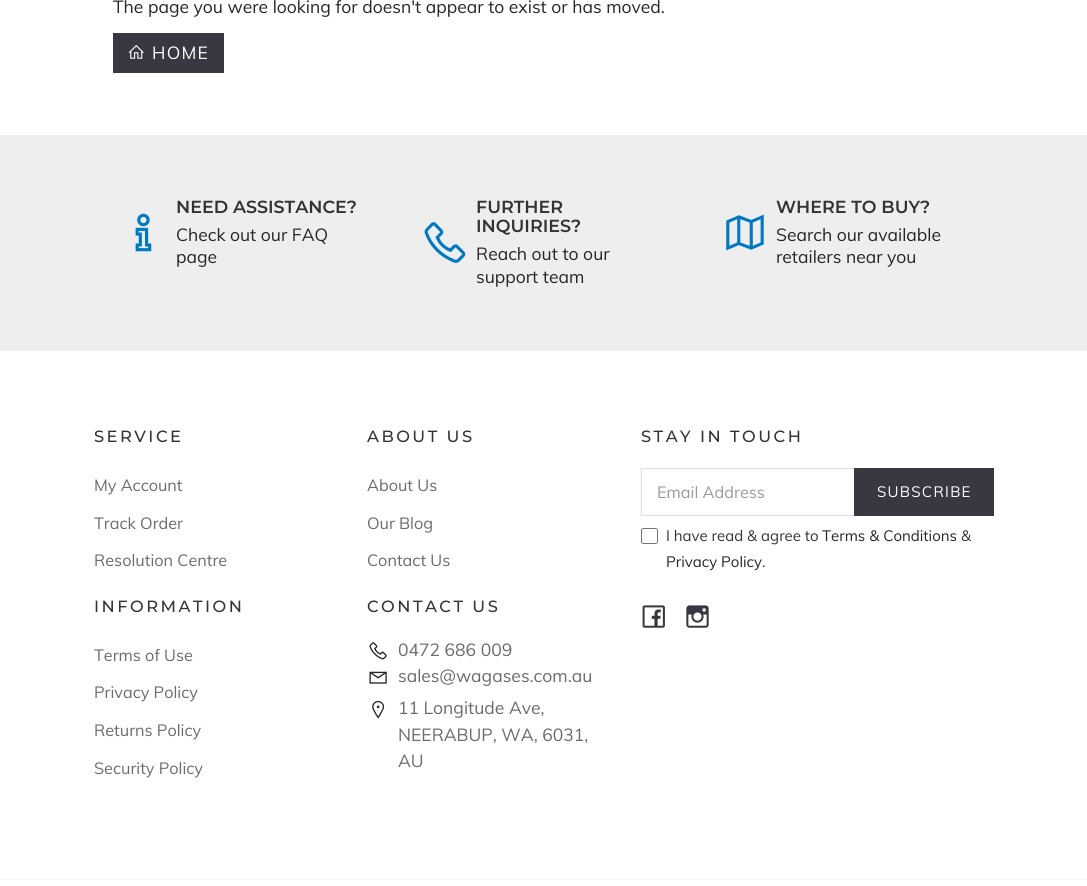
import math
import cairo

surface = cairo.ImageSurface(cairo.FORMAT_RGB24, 1087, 886)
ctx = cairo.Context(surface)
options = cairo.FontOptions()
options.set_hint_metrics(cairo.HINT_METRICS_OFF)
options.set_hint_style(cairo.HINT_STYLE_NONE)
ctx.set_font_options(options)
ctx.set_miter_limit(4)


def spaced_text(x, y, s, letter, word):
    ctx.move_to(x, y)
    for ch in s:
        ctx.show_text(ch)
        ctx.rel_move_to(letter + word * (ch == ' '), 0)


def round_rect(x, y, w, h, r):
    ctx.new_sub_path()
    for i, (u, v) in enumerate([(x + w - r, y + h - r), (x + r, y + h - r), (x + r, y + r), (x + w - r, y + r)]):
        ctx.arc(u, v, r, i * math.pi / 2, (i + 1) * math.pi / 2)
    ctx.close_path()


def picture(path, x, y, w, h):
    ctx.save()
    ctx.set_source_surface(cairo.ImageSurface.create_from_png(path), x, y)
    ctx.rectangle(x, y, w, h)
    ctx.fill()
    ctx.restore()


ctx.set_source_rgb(1, 1, 1)
ctx.paint()
ctx.select_font_face("Muli")
ctx.set_font_size(17.5)
ctx.set_source_rgb(0.145, 0.145, 0.145)
ctx.move_to(113, 13)
ctx.show_text("The page you were looking for doesn't appear to exist or has moved.")
ctx.set_source_rgb(0.216, 0.22, 0.259)
ctx.rectangle(113, 33, 111, 40)
ctx.fill()
picture("img1.png", 128, 45, 16, 14)
ctx.set_source_rgb(1, 1, 1)
spaced_text(152, 59, "HOME", 1.25, 0)
ctx.set_source_rgb(0.933, 0.933, 0.933)
ctx.rectangle(0, 135, 1087, 216)
ctx.fill()
picture("img2.png", 135, 213, 17, 39)
ctx.select_font_face("Montserrat SemiBold")
ctx.set_source_rgb(0.2, 0.2, 0.2)
ctx.move_to(176, 213)
ctx.show_text("NEED ASSISTANCE?")
ctx.select_font_face("Muli")
ctx.set_source_rgb(0.145, 0.145, 0.145)
ctx.move_to(176, 241)
ctx.show_text("Check out our FAQ")
ctx.move_to(176, 263)
ctx.show_text("page")
picture("img3.png", 424, 222, 42, 41)
ctx.select_font_face("Montserrat SemiBold")
ctx.set_source_rgb(0.2, 0.2, 0.2)
ctx.move_to(476, 213)
ctx.show_text("FURTHER")
ctx.move_to(476, 232)
ctx.show_text("INQUIRIES?")
ctx.select_font_face("Muli")
ctx.set_source_rgb(0.145, 0.145, 0.145)
ctx.move_to(476, 260)
ctx.show_text("Reach out to our")
ctx.move_to(476, 283)
ctx.show_text("support team")
picture("img4.png", 726, 214, 38, 37)
ctx.select_font_face("Montserrat SemiBold")
ctx.set_source_rgb(0.2, 0.2, 0.2)
ctx.move_to(776, 213)
ctx.show_text("WHERE TO BUY?")
ctx.select_font_face("Muli")
ctx.set_source_rgb(0.145, 0.145, 0.145)
ctx.move_to(776, 241)
ctx.show_text("Search our available")
ctx.move_to(776, 263)
ctx.show_text("retailers near you")
ctx.select_font_face("Montserrat Medium")
ctx.set_font_size(16.25)
ctx.set_source_rgb(0.2, 0.2, 0.2)
spaced_text(94, 442, "SERVICE", 2.5, 0)
ctx.select_font_face("Muli")
ctx.set_source_rgb(0.42, 0.42, 0.42)
ctx.move_to(94, 491)
ctx.show_text("My Account")
ctx.move_to(94, 529)
ctx.show_text("Track Order")
ctx.move_to(94, 566)
ctx.show_text("Resolution Centre")
ctx.select_font_face("Montserrat Medium")
ctx.set_source_rgb(0.2, 0.2, 0.2)
spaced_text(367, 442, "ABOUT US", 2.5, 0)
ctx.select_font_face("Muli")
ctx.set_source_rgb(0.42, 0.42, 0.42)
ctx.move_to(367, 491)
ctx.show_text("About Us")
ctx.move_to(367, 529)
ctx.show_text("Our Blog")
ctx.move_to(367, 566)
ctx.show_text("Contact Us")
ctx.select_font_face("Montserrat Medium")
ctx.set_source_rgb(0.2, 0.2, 0.2)
spaced_text(94, 612, "INFORMATION", 2.5, 0)
ctx.select_font_face("Muli")
ctx.set_source_rgb(0.42, 0.42, 0.42)
ctx.move_to(94, 661)
ctx.show_text("Terms of Use")
ctx.move_to(94, 698)
ctx.show_text("Privacy Policy")
ctx.move_to(94, 736)
ctx.show_text("Returns Policy")
ctx.move_to(94, 774)
ctx.show_text("Security Policy")
ctx.select_font_face("Montserrat Medium")
ctx.set_source_rgb(0.2, 0.2, 0.2)
spaced_text(367, 612, "CONTACT US", 2.5, 0)
picture("img5.png", 369, 642, 18, 18)
ctx.select_font_face("Muli")
ctx.set_font_size(17.5)
ctx.set_source_rgb(0.42, 0.42, 0.42)
ctx.move_to(398, 656)
ctx.show_text("0472 686 009")
picture("img6.png", 369, 671, 18, 13)
ctx.move_to(398, 682)
ctx.show_text("sales@wagases.com.au")
picture("img7.png", 372, 700, 13, 19)
ctx.move_to(398, 714)
ctx.show_text("11 Longitude Ave,")
ctx.move_to(398, 741)
ctx.show_text("NEERABUP, WA, 6031,")
ctx.move_to(398, 767)
ctx.show_text("AU")
ctx.select_font_face("Montserrat Medium")
ctx.set_font_size(16.25)
ctx.set_source_rgb(0.2, 0.2, 0.2)
spaced_text(641, 442, "STAY IN TOUCH", 2.5, 0)
ctx.rectangle(641.5, 468.5, 213, 47)
ctx.set_source_rgb(0.867, 0.867, 0.867)
ctx.set_line_width(1)
ctx.stroke()
ctx.select_font_face("Muli")
ctx.set_source_rgb(0.6, 0.6, 0.6)
ctx.move_to(657, 498)
ctx.show_text("Email Address")
ctx.set_source_rgb(0.216, 0.22, 0.259)
ctx.rectangle(854, 468, 140, 48)
ctx.fill()
ctx.set_font_size(15)
ctx.set_source_rgb(1, 1, 1)
spaced_text(877, 497, "SUBSCRIBE", 1.25, 0)
round_rect(641.5, 528.5, 16, 15, 2)
ctx.set_source_rgb(0.463, 0.463, 0.463)
ctx.stroke()
ctx.set_source_rgb(0.2, 0.2, 0.2)
ctx.move_to(666, 541)
ctx.show_text("I have read & agree to")
ctx.set_source_rgb(0.145, 0.145, 0.145)
ctx.move_to(822, 541)
ctx.show_text("Terms & Conditions")
ctx.set_source_rgb(0.2, 0.2, 0.2)
ctx.move_to(961, 541)
ctx.show_text("&")
ctx.set_source_rgb(0.145, 0.145, 0.145)
ctx.move_to(666, 567)
ctx.show_text("Privacy Policy")
ctx.set_source_rgb(0.2, 0.2, 0.2)
ctx.move_to(762, 567)
ctx.show_text(".")
picture("img8.png", 642, 605, 23, 23)
picture("img9.png", 686, 605, 23, 23)
ctx.set_source_rgb(0.961, 0.961, 0.961)
ctx.rectangle(0, 879, 1087, 1)
ctx.fill()
surface.write_to_png("page.png")
